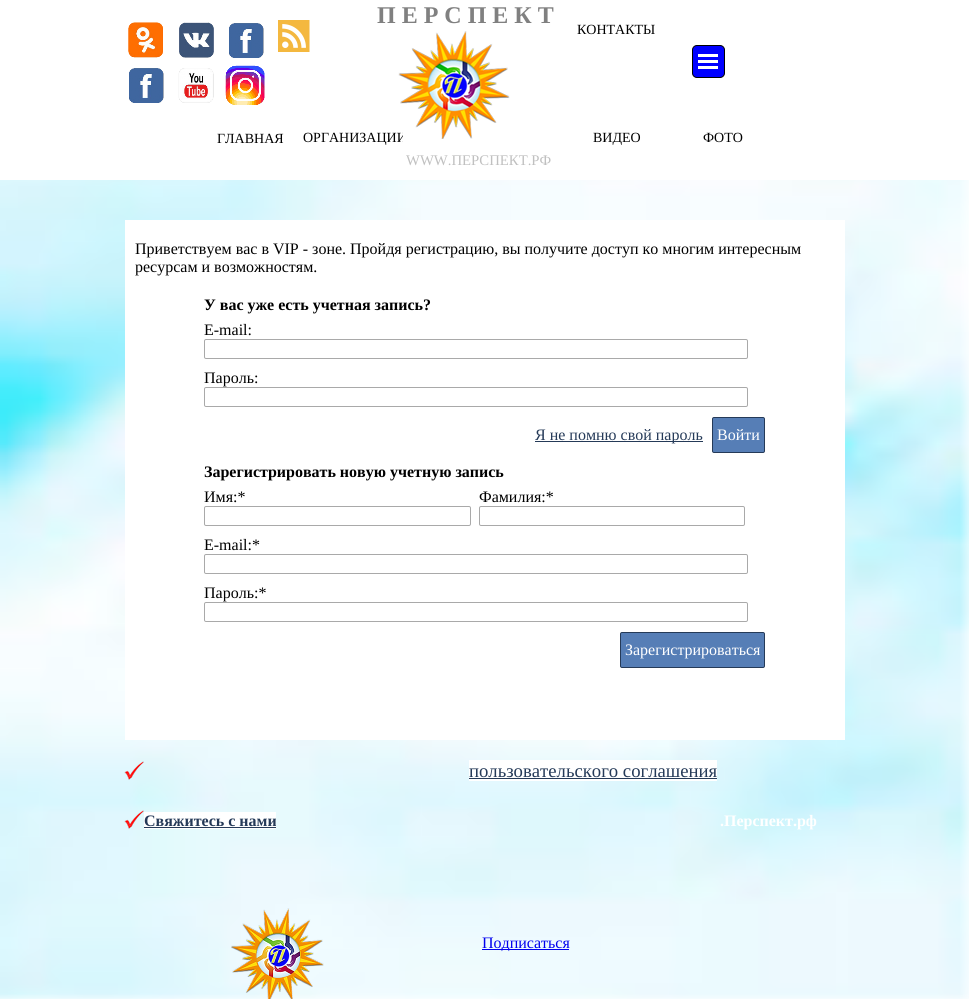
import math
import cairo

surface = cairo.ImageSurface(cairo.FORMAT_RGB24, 969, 999)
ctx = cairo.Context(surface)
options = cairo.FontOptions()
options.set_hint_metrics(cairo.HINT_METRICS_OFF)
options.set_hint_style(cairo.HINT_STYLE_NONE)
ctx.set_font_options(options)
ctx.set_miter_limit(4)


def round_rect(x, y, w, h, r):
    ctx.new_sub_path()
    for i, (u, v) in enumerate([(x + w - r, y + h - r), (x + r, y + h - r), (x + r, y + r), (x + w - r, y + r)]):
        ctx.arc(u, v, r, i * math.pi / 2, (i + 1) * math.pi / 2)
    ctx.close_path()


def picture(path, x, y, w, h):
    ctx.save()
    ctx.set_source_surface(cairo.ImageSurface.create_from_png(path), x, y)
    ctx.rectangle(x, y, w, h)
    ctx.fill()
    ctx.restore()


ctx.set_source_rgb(1, 1, 1)
ctx.paint()
picture("img1.png", 0, 180, 969, 819)
ctx.select_font_face("Liberation Serif", cairo.FONT_SLANT_NORMAL, cairo.FONT_WEIGHT_BOLD)
ctx.set_font_size(24)
ctx.set_source_rgb(0.502, 0.502, 0.502)
ctx.move_to(377, 23)
ctx.show_text("П Е Р С П Е К Т")
picture("img2.png", 128, 22, 35, 36)
picture("img3.png", 179, 22, 35, 36)
picture("img4.png", 229, 23, 35, 35)
picture("img5.png", 278, 20, 32, 32)
ctx.select_font_face("Liberation Serif")
ctx.set_font_size(14)
ctx.set_source_rgb(0, 0, 0)
ctx.move_to(577, 34)
ctx.show_text("КОНТАКТЫ")
picture("img6.png", 398, 31, 112, 108)
ctx.set_source_rgb(0, 0, 1)
round_rect(692.5, 45.5, 32, 32, 4.5)
ctx.fill_preserve()
ctx.set_source_rgb(0, 0, 0)
ctx.set_line_width(1)
ctx.stroke()
ctx.set_source_rgb(1, 1, 1)
ctx.rectangle(698, 54, 20, 3)
ctx.fill()
ctx.rectangle(698, 60, 20, 3)
ctx.fill()
ctx.rectangle(698, 66, 20, 3)
ctx.fill()
picture("img4.png", 129, 68, 35, 35)
picture("img7.png", 178, 68, 36, 35)
picture("img8.png", 225, 65, 40, 40)
ctx.set_source_rgb(0, 0, 0)
ctx.move_to(217, 143)
ctx.show_text("ГЛАВНАЯ")
ctx.save()
ctx.rectangle(303, 113, 100, 50)
ctx.clip()
ctx.move_to(303, 142)
ctx.show_text("ОРГАНИЗАЦИИ")
ctx.restore()
ctx.move_to(593, 142)
ctx.show_text("ВИДЕО")
ctx.move_to(703, 142)
ctx.show_text("ФОТО")
ctx.set_font_size(14.75)
ctx.set_source_rgb(0.753, 0.753, 0.753)
ctx.move_to(406, 165)
ctx.show_text("WWW.ПЕРСПЕКТ.РФ")
ctx.set_source_rgb(1, 1, 1)
ctx.rectangle(125, 220, 720, 520)
ctx.fill()
ctx.set_font_size(16)
ctx.set_source_rgb(0, 0, 0)
ctx.move_to(135, 254)
ctx.show_text("Приветствуем вас в VIP - зоне. Пройдя регистрацию, вы получите доступ ко многим интересным")
ctx.move_to(135, 272)
ctx.show_text("ресурсам и возможностям.")
ctx.select_font_face("Liberation Serif", cairo.FONT_SLANT_NORMAL, cairo.FONT_WEIGHT_BOLD)
ctx.move_to(204, 310)
ctx.show_text("У вас уже есть учетная запись?")
ctx.select_font_face("Liberation Serif")
ctx.move_to(204, 335)
ctx.show_text("E-mail:")
round_rect(204.5, 339.5, 543, 19, 1.5)
ctx.set_source_rgb(0.663, 0.663, 0.663)
ctx.stroke()
ctx.set_source_rgb(0, 0, 0)
ctx.move_to(204, 383)
ctx.show_text("Пароль:")
round_rect(204.5, 387.5, 543, 19, 1.5)
ctx.set_source_rgb(0.663, 0.663, 0.663)
ctx.stroke()
ctx.set_source_rgb(0.145, 0.227, 0.345)
ctx.rectangle(535, 441, 168, 1)
ctx.fill()
ctx.move_to(535, 440)
ctx.show_text("Я не помню свой пароль")
ctx.set_source_rgb(0.337, 0.494, 0.714)
round_rect(712.5, 417.5, 52, 35, 1.5)
ctx.fill_preserve()
ctx.set_source_rgb(0.145, 0.227, 0.345)
ctx.stroke()
ctx.set_source_rgb(1, 1, 1)
ctx.move_to(717, 440)
ctx.show_text("Войти")
ctx.select_font_face("Liberation Serif", cairo.FONT_SLANT_NORMAL, cairo.FONT_WEIGHT_BOLD)
ctx.set_source_rgb(0, 0, 0)
ctx.move_to(204, 477)
ctx.show_text("Зарегистрировать новую учетную запись")
ctx.select_font_face("Liberation Serif")
ctx.move_to(204, 502)
ctx.show_text("Имя:*")
round_rect(204.5, 506.5, 266, 19, 1.5)
ctx.set_source_rgb(0.663, 0.663, 0.663)
ctx.stroke()
ctx.set_source_rgb(0, 0, 0)
ctx.move_to(479, 502)
ctx.show_text("Фамилия:*")
round_rect(479.5, 506.5, 265, 19, 1.5)
ctx.set_source_rgb(0.663, 0.663, 0.663)
ctx.stroke()
ctx.set_source_rgb(0, 0, 0)
ctx.move_to(204, 550)
ctx.show_text("E-mail:*")
round_rect(204.5, 554.5, 543, 19, 1.5)
ctx.set_source_rgb(0.663, 0.663, 0.663)
ctx.stroke()
ctx.set_source_rgb(0, 0, 0)
ctx.move_to(204, 598)
ctx.show_text("Пароль:*")
round_rect(204.5, 602.5, 543, 19, 1.5)
ctx.set_source_rgb(0.663, 0.663, 0.663)
ctx.stroke()
ctx.set_source_rgb(0.337, 0.494, 0.714)
round_rect(620.5, 632.5, 144, 35, 1.5)
ctx.fill_preserve()
ctx.set_source_rgb(0.145, 0.227, 0.345)
ctx.stroke()
ctx.set_source_rgb(1, 1, 1)
ctx.move_to(625, 655)
ctx.show_text("Зарегистрироваться")
picture("img9.png", 124, 761, 20, 19)
ctx.rectangle(469, 760, 248, 21)
ctx.fill()
ctx.set_font_size(18.7)
ctx.set_source_rgb(0.145, 0.227, 0.345)
ctx.move_to(469, 777)
ctx.show_text("пользовательского соглашения")
ctx.rectangle(469, 778, 248, 1)
ctx.fill()
picture("img10.png", 124, 810, 20, 19)
ctx.set_source_rgb(1, 1, 1)
ctx.rectangle(144, 812, 132, 17)
ctx.fill()
ctx.select_font_face("Liberation Serif", cairo.FONT_SLANT_NORMAL, cairo.FONT_WEIGHT_BOLD)
ctx.set_font_size(16)
ctx.set_source_rgb(0.145, 0.227, 0.345)
ctx.move_to(144, 826)
ctx.show_text("Свяжитесь с нами")
ctx.rectangle(144, 827, 132, 1)
ctx.fill()
ctx.set_source_rgb(1, 1, 1)
ctx.move_to(720, 826)
ctx.show_text(".Перспект.рф")
picture("img11.png", 231, 908, 93, 91)
ctx.set_source_rgb(0, 0, 0.933)
ctx.rectangle(482, 949, 87, 1)
ctx.fill()
ctx.select_font_face("Liberation Serif")
ctx.move_to(482, 948)
ctx.show_text("Подписаться")
surface.write_to_png("page.png")
